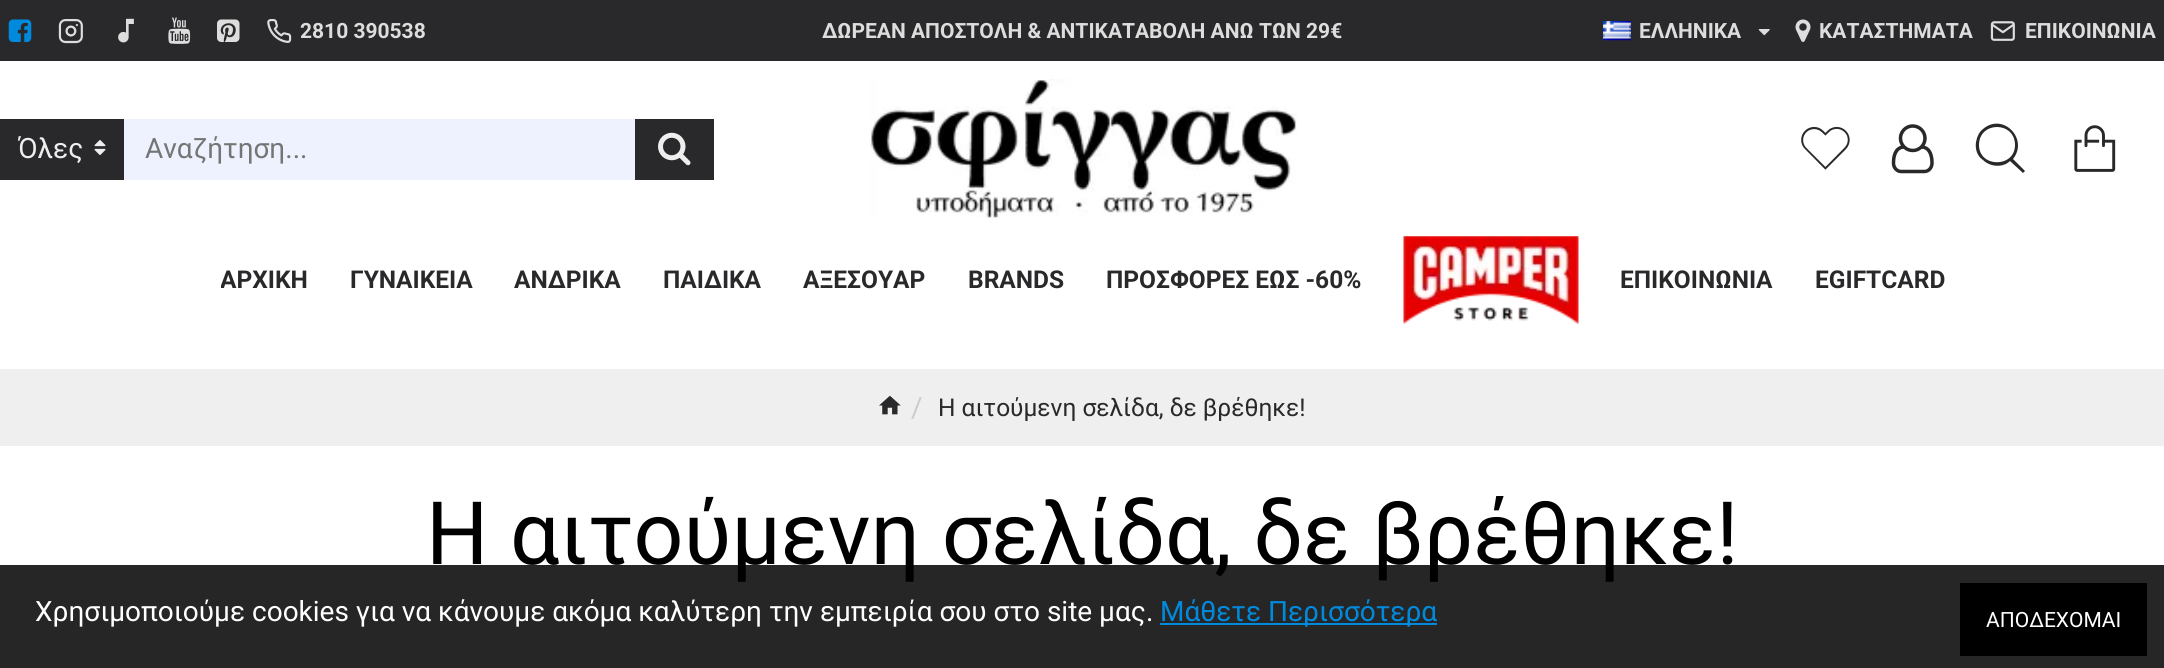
import math
import cairo

surface = cairo.ImageSurface(cairo.FORMAT_RGB24, 2164, 668)
ctx = cairo.Context(surface)
options = cairo.FontOptions()
options.set_hint_metrics(cairo.HINT_METRICS_OFF)
options.set_hint_style(cairo.HINT_STYLE_NONE)
ctx.set_font_options(options)
ctx.set_miter_limit(4)


def picture(path, x, y, w, h):
    ctx.save()
    ctx.set_source_surface(cairo.ImageSurface.create_from_png(path), x, y)
    ctx.rectangle(x, y, w, h)
    ctx.fill()
    ctx.restore()


ctx.set_source_rgb(1, 1, 1)
ctx.paint()
ctx.set_source_rgb(0.161, 0.161, 0.169)
ctx.rectangle(0, 0, 2164, 61)
ctx.fill()
picture("img1.png", 8, 19, 24, 23)
picture("img2.png", 58, 19, 25, 25)
picture("img3.png", 118, 18, 16, 25)
picture("img4.png", 168, 17, 23, 27)
picture("img5.png", 217, 19, 23, 23)
picture("img6.png", 267, 19, 25, 24)
ctx.select_font_face("Roboto", cairo.FONT_SLANT_NORMAL, cairo.FONT_WEIGHT_BOLD)
ctx.set_font_size(21)
ctx.set_source_rgb(0.867, 0.867, 0.867)
ctx.move_to(300, 38)
ctx.show_text("2810 390538")
ctx.move_to(822, 38)
ctx.show_text("ΔΩΡΕΑΝ ΑΠΟΣΤΟΛΗ & ΑΝΤΙΚΑΤΑΒΟΛΗ ΑΝΩ ΤΩΝ 29€")
picture("img7.png", 1603, 21, 28, 20)
ctx.move_to(1639, 38)
ctx.show_text("ΕΛΛΗΝΙΚΑ")
picture("img8.png", 1758, 29, 12, 7)
picture("img9.png", 1795, 19, 16, 23)
ctx.move_to(1819, 38)
ctx.show_text("ΚΑΤΑΣΤΗΜΑΤΑ")
picture("img10.png", 1990, 21, 25, 20)
ctx.move_to(2025, 38)
ctx.show_text("ΕΠΙΚΟΙΝΩΝΙΑ")
ctx.set_source_rgb(0.161, 0.161, 0.169)
ctx.rectangle(0, 119, 124, 61)
ctx.fill()
ctx.select_font_face("Roboto")
ctx.set_font_size(28)
ctx.set_source_rgb(0.933, 0.933, 0.933)
ctx.move_to(18, 158)
ctx.show_text("Όλες")
picture("img11.png", 94, 140, 12, 15)
ctx.set_source_rgb(0.929, 0.949, 0.996)
ctx.rectangle(124, 119, 511, 61)
ctx.fill()
ctx.set_source_rgb(0.459, 0.459, 0.459)
ctx.move_to(145, 158)
ctx.show_text("Αναζήτηση...")
ctx.set_source_rgb(0.161, 0.161, 0.169)
ctx.rectangle(635, 119, 79, 61)
ctx.fill()
picture("img12.png", 658, 132, 33, 34)
picture("img13.png", 870, 79, 427, 139)
picture("img14.png", 1801, 126, 49, 44)
picture("img15.png", 1891, 124, 43, 50)
ctx.new_path()
ctx.move_to(2025, 171)
ctx.line_to(2013, 159)
ctx.curve_to(2029, 139, 2003, 112, 1983, 129)
ctx.curve_to(1979, 132, 1977, 137, 1976, 142)
ctx.curve_to(1975, 149, 1977, 156, 1983, 160)
ctx.curve_to(1990, 167, 2003, 168, 2010, 161)
ctx.line_to(2023, 173)
ctx.close_path()
ctx.move_to(1979, 145)
ctx.curve_to(1979, 121, 2015, 121, 2015, 145)
ctx.curve_to(2015, 168, 1979, 168, 1979, 145)
ctx.close_path()
ctx.fill()
picture("img16.png", 2074, 125, 42, 47)
ctx.save()
ctx.rectangle(221, 263, 87, 36)
ctx.clip()
ctx.select_font_face("Roboto", cairo.FONT_SLANT_NORMAL, cairo.FONT_WEIGHT_BOLD)
ctx.set_font_size(24.5)
ctx.move_to(220, 288)
ctx.show_text("ΑΡΧΙΚΗ")
ctx.restore()
ctx.select_font_face("Roboto", cairo.FONT_SLANT_NORMAL, cairo.FONT_WEIGHT_BOLD)
ctx.set_font_size(24.5)
ctx.move_to(350, 288)
ctx.show_text("ΓΥΝΑΙΚΕΙΑ")
ctx.move_to(514, 288)
ctx.show_text("ΑΝΔΡΙΚΑ")
ctx.move_to(663, 288)
ctx.show_text("ΠΑΙΔΙΚΑ")
ctx.move_to(803, 288)
ctx.show_text("ΑΞΕΣΟΥΑΡ")
ctx.move_to(968, 288)
ctx.show_text("BRANDS")
ctx.move_to(1106, 288)
ctx.show_text("ΠΡΟΣΦΟΡΕΣ ΕΩΣ -60%")
picture("img17.png", 1403, 236, 176, 88)
ctx.move_to(1620, 288)
ctx.show_text("ΕΠΙΚΟΙΝΩΝΙΑ")
ctx.move_to(1815, 288)
ctx.show_text("EGIFTCARD")
ctx.set_source_rgb(0.937, 0.937, 0.937)
ctx.rectangle(0, 369, 2164, 77)
ctx.fill()
picture("img18.png", 879, 395, 22, 20)
ctx.select_font_face("Roboto")
ctx.set_font_size(28)
ctx.set_source_rgb(0.8, 0.8, 0.8)
ctx.move_to(911, 417)
ctx.show_text("/")
ctx.set_font_size(24.5)
ctx.set_source_rgb(0.161, 0.161, 0.169)
ctx.move_to(938, 416)
ctx.show_text("Η αιτούμενη σελίδα, δε βρέθηκε!")
ctx.set_font_size(87.5)
ctx.set_source_rgb(0, 0, 0)
ctx.move_to(426, 564)
ctx.show_text("Η αιτούμενη σελίδα, δε βρέθηκε!")
ctx.set_source_rgba(0, 0, 0, 0.85)
ctx.rectangle(0, 565, 2164, 103)
ctx.fill()
ctx.set_font_size(28)
ctx.set_source_rgb(1, 1, 1)
ctx.move_to(35, 621)
ctx.show_text("Χρησιμοποιούμε cookies για να κάνουμε ακόμα καλύτερη την εμπειρία σου στο site μας.")
ctx.set_source_rgb(0, 0.541, 0.867)
ctx.rectangle(1160, 623, 277, 2)
ctx.fill()
ctx.move_to(1160, 621)
ctx.show_text("Μάθετε Περισσότερα")
ctx.set_source_rgb(0, 0, 0)
ctx.rectangle(1960, 583, 187, 73)
ctx.fill()
ctx.set_font_size(21)
ctx.set_source_rgb(1, 1, 1)
ctx.move_to(1986, 627)
ctx.show_text("ΑΠΟΔΕΧΟΜΑΙ")
surface.write_to_png("page.png")
